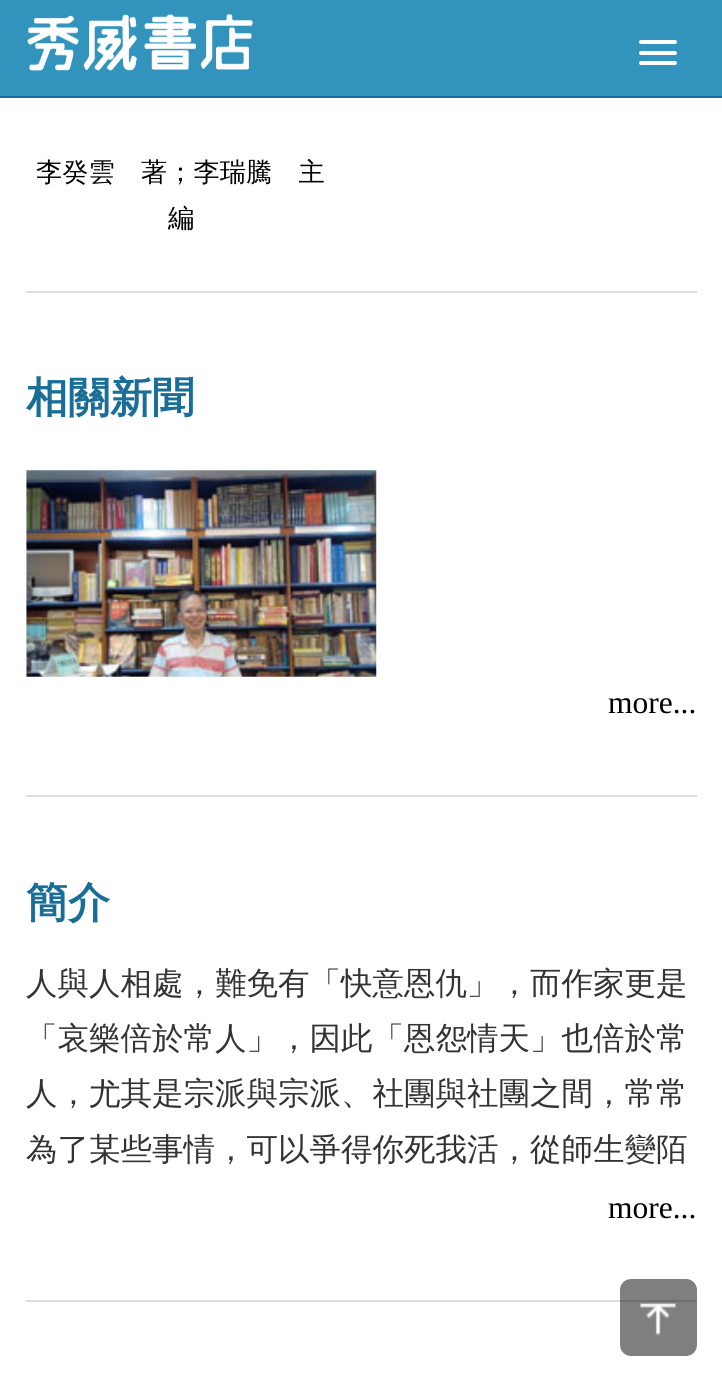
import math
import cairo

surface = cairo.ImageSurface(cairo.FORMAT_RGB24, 722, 1381)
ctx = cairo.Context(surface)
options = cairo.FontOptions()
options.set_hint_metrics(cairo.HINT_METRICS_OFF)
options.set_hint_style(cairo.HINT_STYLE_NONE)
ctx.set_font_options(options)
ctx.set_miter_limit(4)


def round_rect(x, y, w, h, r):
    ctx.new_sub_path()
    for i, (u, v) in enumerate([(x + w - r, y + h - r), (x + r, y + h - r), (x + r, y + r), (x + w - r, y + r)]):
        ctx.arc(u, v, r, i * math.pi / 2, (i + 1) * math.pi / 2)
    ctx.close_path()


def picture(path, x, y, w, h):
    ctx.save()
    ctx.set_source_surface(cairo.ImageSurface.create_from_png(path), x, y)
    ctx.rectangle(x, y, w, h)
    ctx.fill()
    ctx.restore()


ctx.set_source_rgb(1, 1, 1)
ctx.paint()
ctx.set_source_rgb(0.196, 0.58, 0.741)
ctx.rectangle(0, 0, 722, 96)
ctx.fill()
ctx.set_source_rgb(0.098, 0.431, 0.596)
ctx.rectangle(0, 96, 722, 2)
ctx.fill()
picture("img1.png", 27, 14, 226, 57)
ctx.set_source_rgb(1, 1, 1)
round_rect(639, 40, 38, 4, 2)
ctx.fill()
round_rect(639, 51, 38, 4, 2)
ctx.fill()
round_rect(639, 61, 38, 4, 2)
ctx.fill()
ctx.select_font_face("WenQuanYi Zen Hei Medium")
ctx.set_font_size(26.25)
ctx.set_source_rgb(0, 0, 0)
ctx.move_to(36, 181)
ctx.show_text("李癸雲　著；李瑞騰　主")
ctx.move_to(168, 227)
ctx.show_text("編")
ctx.set_source_rgb(0.867, 0.867, 0.867)
ctx.rectangle(26, 291, 671, 2)
ctx.fill()
ctx.select_font_face("WenQuanYi Zen Hei", cairo.FONT_SLANT_NORMAL, cairo.FONT_WEIGHT_BOLD)
ctx.set_font_size(42)
ctx.set_source_rgb(0.098, 0.431, 0.596)
ctx.move_to(26, 412)
ctx.show_text("相關新聞")
picture("img2.png", 26, 470, 351, 207)
ctx.select_font_face("Liberation Serif")
ctx.set_font_size(31.5)
ctx.set_source_rgb(0, 0, 0)
ctx.move_to(608, 713)
ctx.show_text("more...")
ctx.set_source_rgb(0.867, 0.867, 0.867)
ctx.rectangle(26, 795, 671, 2)
ctx.fill()
ctx.select_font_face("WenQuanYi Zen Hei", cairo.FONT_SLANT_NORMAL, cairo.FONT_WEIGHT_BOLD)
ctx.set_font_size(42)
ctx.set_source_rgb(0.098, 0.431, 0.596)
ctx.move_to(26, 917)
ctx.show_text("簡介")
ctx.select_font_face("WenQuanYi Zen Hei Medium")
ctx.set_font_size(31.5)
ctx.set_source_rgb(0.2, 0.2, 0.2)
ctx.move_to(26, 994)
ctx.show_text("人與人相處，難免有「快意恩仇」，而作家更是")
ctx.move_to(26, 1049)
ctx.show_text("「哀樂倍於常人」，因此「恩怨情天」也倍於常")
ctx.move_to(26, 1104)
ctx.show_text("人，尤其是宗派與宗派、社團與社團之間，常常")
ctx.move_to(26, 1160)
ctx.show_text("為了某些事情，可以爭得你死我活，從師生變陌")
ctx.select_font_face("Liberation Serif")
ctx.set_source_rgb(0, 0, 0)
ctx.move_to(608, 1218)
ctx.show_text("more...")
ctx.set_source_rgb(0.867, 0.867, 0.867)
ctx.rectangle(26, 1300, 671, 2)
ctx.fill()
ctx.set_source_rgba(0, 0, 0, 0.5)
round_rect(620, 1279, 77, 77, 11)
ctx.fill()
picture("img3.png", 640, 1303, 36, 33)
surface.write_to_png("page.png")
